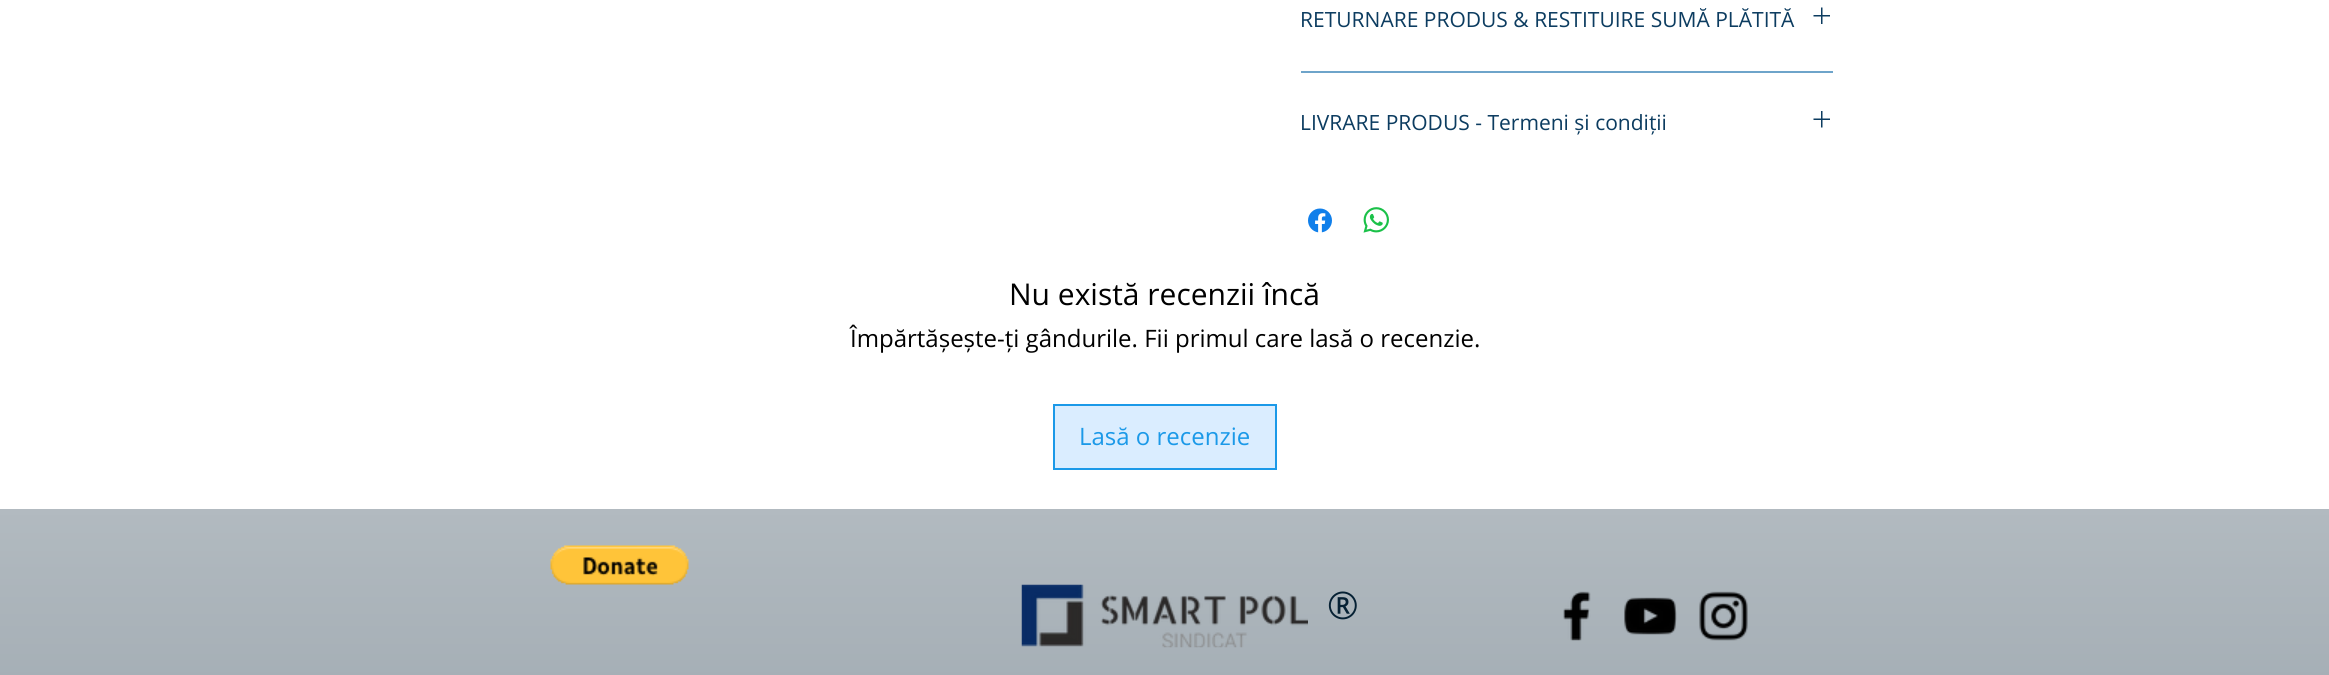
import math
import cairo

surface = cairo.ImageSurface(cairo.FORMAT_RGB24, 2329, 675)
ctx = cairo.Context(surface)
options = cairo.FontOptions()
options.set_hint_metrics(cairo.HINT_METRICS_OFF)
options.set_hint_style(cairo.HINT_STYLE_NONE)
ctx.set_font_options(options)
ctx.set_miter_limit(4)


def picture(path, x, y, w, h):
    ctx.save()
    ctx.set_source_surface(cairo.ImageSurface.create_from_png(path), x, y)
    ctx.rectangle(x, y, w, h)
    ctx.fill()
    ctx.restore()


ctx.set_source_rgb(1, 1, 1)
ctx.paint()
ctx.set_source_rgb(0.431, 0.643, 0.792)
ctx.rectangle(1301, 71, 532, 2)
ctx.fill()
ctx.select_font_face("Open Sans")
ctx.set_font_size(21)
ctx.set_source_rgb(0.047, 0.235, 0.376)
ctx.move_to(1300, 27)
ctx.show_text("RETURNARE PRODUS & RESTITUIRE SUMĂ PLĂTITĂ")
picture("img1.png", 1813, 7, 17, 17)
ctx.move_to(1300, 130)
ctx.show_text("LIVRARE PRODUS - Termeni și condiții")
picture("img2.png", 1813, 111, 17, 17)
picture("img3.png", 1308, 208, 24, 25)
picture("img4.png", 1363, 207, 26, 26)
ctx.set_font_size(30)
ctx.set_source_rgb(0, 0, 0)
ctx.move_to(1009, 305)
ctx.show_text("Nu există recenzii încă")
ctx.set_font_size(24)
ctx.move_to(850, 347)
ctx.show_text("Împărtășește-ți gândurile. Fii primul care lasă o recenzie.")
ctx.set_source_rgb(0.855, 0.929, 1)
ctx.rectangle(1054, 405, 222, 64)
ctx.fill_preserve()
ctx.set_source_rgb(0.106, 0.6, 0.91)
ctx.stroke()
ctx.move_to(1079, 445)
ctx.show_text("Lasă o recenzie")
ctx.set_source_rgb(0.592, 0.635, 0.667)
ctx.rectangle(0, 509, 2329, 166)
ctx.fill()
picture("img5.png", 0, 509, 2329, 166)
picture("img6.png", 550, 545, 139, 40)
picture("img7.png", 1021, 584, 287, 64)
ctx.set_font_size(38)
ctx.set_source_rgb(0.024, 0.129, 0.204)
ctx.move_to(1327, 619)
ctx.show_text("®")
picture("img8.png", 1563, 591, 28, 50)
picture("img9.png", 1624, 597, 53, 38)
picture("img10.png", 1699, 591, 49, 50)
surface.write_to_png("page.png")
